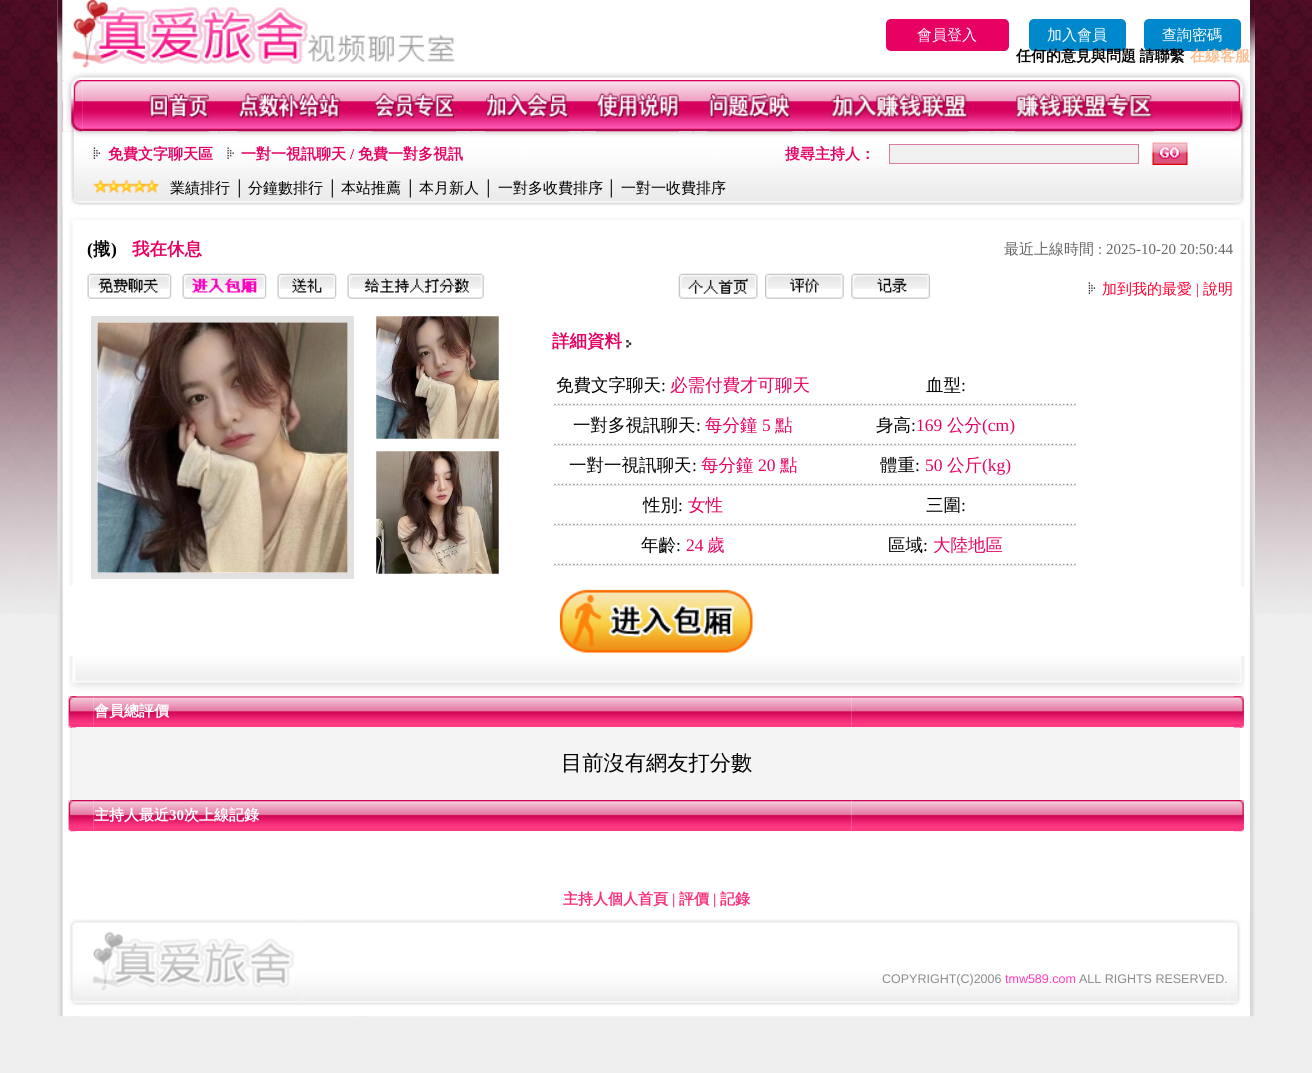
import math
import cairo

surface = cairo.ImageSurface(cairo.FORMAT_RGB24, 1312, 1073)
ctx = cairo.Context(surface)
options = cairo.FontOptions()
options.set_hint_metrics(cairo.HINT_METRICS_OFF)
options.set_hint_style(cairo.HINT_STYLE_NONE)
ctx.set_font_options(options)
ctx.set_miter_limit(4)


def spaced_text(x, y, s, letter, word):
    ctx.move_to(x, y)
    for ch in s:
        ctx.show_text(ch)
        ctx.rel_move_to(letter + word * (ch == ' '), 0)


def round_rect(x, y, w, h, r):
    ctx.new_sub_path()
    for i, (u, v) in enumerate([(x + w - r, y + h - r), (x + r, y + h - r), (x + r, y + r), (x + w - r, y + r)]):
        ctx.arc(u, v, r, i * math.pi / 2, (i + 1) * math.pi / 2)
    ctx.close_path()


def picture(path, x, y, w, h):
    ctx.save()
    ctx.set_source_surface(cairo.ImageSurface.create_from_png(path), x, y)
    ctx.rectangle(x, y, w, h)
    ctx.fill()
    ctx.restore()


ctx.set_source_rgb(0.937, 0.937, 0.937)
ctx.paint()
picture("img1.png", 0, 0, 1312, 614)
picture("img2.png", 57, 0, 1198, 1017)
picture("img3.png", 57, 0, 6, 63)
ctx.set_source_rgb(1, 1, 1)
ctx.rectangle(69, 0, 1181, 80)
ctx.fill()
picture("img4.png", 62, 0, 393, 68)
ctx.set_source_rgb(0.902, 0.004, 0.388)
round_rect(886, 19, 123, 32, 5)
ctx.fill()
ctx.select_font_face("WenQuanYi Zen Hei Medium")
ctx.set_font_size(15)
ctx.set_source_rgb(1, 1, 1)
ctx.move_to(917, 40)
ctx.show_text("會員登入")
ctx.set_source_rgb(0, 0.533, 0.8)
round_rect(1029, 19, 97, 32, 5)
ctx.fill()
ctx.set_source_rgb(1, 1, 1)
ctx.move_to(1047, 40)
ctx.show_text("加入會員")
ctx.set_source_rgb(0, 0.533, 0.8)
round_rect(1144, 19, 97, 32, 5)
ctx.fill()
ctx.set_source_rgb(1, 1, 1)
ctx.move_to(1162, 40)
ctx.show_text("查詢密碼")
ctx.select_font_face("WenQuanYi Zen Hei", cairo.FONT_SLANT_NORMAL, cairo.FONT_WEIGHT_BOLD)
ctx.set_source_rgb(0, 0, 0)
spaced_text(1016, 61, "任何的意見與問題 請聯繫", 0, -1)
ctx.set_source_rgb(1, 0.737, 0.549)
ctx.move_to(1190, 61)
ctx.show_text("在線客服")
picture("img5.png", 62, 67, 1183, 13)
picture("img6.png", 62, 80, 21, 52)
picture("img8.png", 82, 80, 1150, 52)
picture("img22.png", 1231, 80, 19, 52)
picture("img24.png", 62, 131, 1188, 76)
picture("img7.png", 62, 80, 21, 52)
picture("img9.png", 147, 92, 62, 40)
picture("img10.png", 218, 131, 2, 1)
picture("img11.png", 237, 92, 105, 40)
picture("img12.png", 357, 131, 2, 1)
picture("img13.png", 372, 92, 85, 40)
picture("img14.png", 470, 131, 2, 1)
picture("img15.png", 485, 92, 84, 40)
picture("img16.png", 582, 131, 2, 1)
picture("img17.png", 596, 92, 83, 40)
picture("img16.png", 692, 131, 2, 1)
picture("img18.png", 707, 92, 86, 40)
picture("img19.png", 806, 131, 2, 1)
picture("img20.png", 830, 93, 139, 39)
picture("img19.png", 991, 131, 2, 1)
picture("img21.png", 1015, 93, 139, 39)
picture("img23.png", 1231, 80, 19, 52)
picture("img25.png", 93, 147, 7, 12)
ctx.set_source_rgb(0.902, 0.004, 0.388)
ctx.move_to(108, 159)
ctx.show_text("免費文字聊天區")
picture("img26.png", 227, 147, 7, 12)
ctx.move_to(241, 159)
ctx.show_text("一對一視訊聊天")
ctx.select_font_face("Liberation Serif", cairo.FONT_SLANT_NORMAL, cairo.FONT_WEIGHT_BOLD)
ctx.move_to(350, 159)
ctx.show_text("/")
ctx.select_font_face("WenQuanYi Zen Hei", cairo.FONT_SLANT_NORMAL, cairo.FONT_WEIGHT_BOLD)
ctx.move_to(358, 159)
ctx.show_text("免費一對多視訊")
ctx.move_to(785, 159)
ctx.show_text("搜尋主持人：")
ctx.set_source_rgb(0.941, 0.941, 0.941)
ctx.rectangle(889.5, 144.5, 249, 19)
ctx.fill_preserve()
ctx.set_source_rgb(0.859, 0.482, 0.643)
ctx.set_line_width(1)
ctx.stroke()
picture("img27.png", 1152, 142, 36, 23)
picture("img28.png", 93, 180, 66, 13)
ctx.select_font_face("WenQuanYi Zen Hei Medium")
ctx.set_source_rgb(0, 0, 0)
ctx.move_to(170, 193)
ctx.show_text("業績排行")
ctx.select_font_face("Liberation Serif")
ctx.move_to(234, 193)
ctx.show_text("│")
ctx.select_font_face("WenQuanYi Zen Hei Medium")
ctx.move_to(248, 193)
ctx.show_text("分鐘數排行")
ctx.select_font_face("Liberation Serif")
ctx.move_to(327, 193)
ctx.show_text("│")
ctx.select_font_face("WenQuanYi Zen Hei Medium")
ctx.move_to(341, 193)
ctx.show_text("本站推薦")
ctx.select_font_face("Liberation Serif")
ctx.move_to(405, 193)
ctx.show_text("│")
ctx.select_font_face("WenQuanYi Zen Hei Medium")
ctx.move_to(419, 193)
ctx.show_text("本月新人")
ctx.select_font_face("Liberation Serif")
ctx.move_to(483, 193)
ctx.show_text("│")
ctx.select_font_face("WenQuanYi Zen Hei Medium")
ctx.move_to(498, 193)
ctx.show_text("一對多收費排序")
ctx.select_font_face("Liberation Serif")
ctx.move_to(606, 193)
ctx.show_text("│")
ctx.select_font_face("WenQuanYi Zen Hei Medium")
ctx.move_to(621, 193)
ctx.show_text("一對一收費排序")
ctx.set_source_rgb(1, 1, 1)
ctx.rectangle(69, 206, 295, 451)
ctx.fill()
picture("img29.png", 69, 217, 1176, 8)
picture("img30.png", 69, 225, 1176, 79)
ctx.select_font_face("Liberation Serif", cairo.FONT_SLANT_NORMAL, cairo.FONT_WEIGHT_BOLD)
ctx.set_font_size(17.5)
ctx.set_source_rgb(0, 0, 0)
ctx.move_to(87, 255)
ctx.show_text("(")
ctx.select_font_face("WenQuanYi Zen Hei", cairo.FONT_SLANT_NORMAL, cairo.FONT_WEIGHT_BOLD)
ctx.move_to(93, 255)
ctx.show_text("撠")
ctx.select_font_face("Liberation Serif", cairo.FONT_SLANT_NORMAL, cairo.FONT_WEIGHT_BOLD)
ctx.move_to(111, 255)
ctx.show_text(")")
ctx.select_font_face("WenQuanYi Zen Hei", cairo.FONT_SLANT_NORMAL, cairo.FONT_WEIGHT_BOLD)
ctx.set_source_rgb(0.902, 0.004, 0.388)
ctx.move_to(132, 255)
ctx.show_text("我在休息")
ctx.select_font_face("WenQuanYi Zen Hei Medium")
ctx.set_font_size(15)
ctx.set_source_rgb(0.4, 0.4, 0.4)
ctx.move_to(1004, 254)
ctx.show_text("最近上線時間")
ctx.select_font_face("Liberation Serif")
ctx.move_to(1098, 254)
ctx.show_text(": 2025-10-20 20:50:44")
picture("img31.png", 87, 273, 85, 26)
picture("img32.png", 182, 273, 85, 26)
picture("img33.png", 277, 273, 60, 26)
picture("img34.png", 347, 273, 137, 26)
picture("img35.png", 678, 273, 80, 26)
picture("img36.png", 765, 273, 79, 26)
picture("img37.png", 851, 273, 79, 26)
picture("img38.png", 1088, 282, 7, 12)
ctx.select_font_face("WenQuanYi Zen Hei Medium")
ctx.set_source_rgb(1, 0, 0.2)
ctx.move_to(1102, 294)
ctx.show_text("加到我的最愛")
ctx.select_font_face("Liberation Serif")
ctx.move_to(1196, 294)
ctx.show_text("|")
ctx.select_font_face("WenQuanYi Zen Hei Medium")
ctx.move_to(1203, 294)
ctx.show_text("說明")
picture("img39.png", 69, 304, 1176, 282)
ctx.rectangle(94, 319, 257, 257)
ctx.set_source_rgb(0.882, 0.882, 0.882)
ctx.set_line_width(6)
ctx.stroke()
picture("img40.png", 97, 322, 251, 251)
picture("img41.png", 376, 316, 123, 123)
picture("img42.png", 376, 451, 123, 123)
ctx.select_font_face("WenQuanYi Zen Hei", cairo.FONT_SLANT_NORMAL, cairo.FONT_WEIGHT_BOLD)
ctx.set_font_size(17.5)
ctx.set_source_rgb(0.902, 0.004, 0.388)
ctx.move_to(552, 347)
ctx.show_text("詳細資料")
picture("img43.png", 626, 340, 6, 8)
picture("img44.png", 554, 403, 260, 2)
ctx.set_source_rgb(0.91, 0.91, 0.91)
ctx.rectangle(553, 405, 523, 1)
ctx.fill()
ctx.select_font_face("WenQuanYi Zen Hei Medium")
ctx.set_source_rgb(0, 0, 0)
ctx.move_to(556, 391)
ctx.show_text("免費文字聊天")
ctx.select_font_face("Liberation Serif")
ctx.move_to(661, 391)
ctx.show_text(":")
ctx.select_font_face("WenQuanYi Zen Hei Medium")
ctx.set_source_rgb(0.902, 0.004, 0.388)
ctx.move_to(670, 391)
ctx.show_text("必需付費才可聊天")
picture("img45.png", 813, 403, 263, 2)
ctx.set_source_rgb(0, 0, 0)
ctx.move_to(926, 391)
ctx.show_text("血型")
ctx.select_font_face("Liberation Serif")
ctx.move_to(961, 391)
ctx.show_text(":")
picture("img44.png", 554, 443, 260, 2)
ctx.set_source_rgb(0.91, 0.91, 0.91)
ctx.rectangle(553, 445, 523, 1)
ctx.fill()
ctx.select_font_face("WenQuanYi Zen Hei Medium")
ctx.set_source_rgb(0, 0, 0)
ctx.move_to(573, 431)
ctx.show_text("一對多視訊聊天")
ctx.select_font_face("Liberation Serif")
ctx.move_to(696, 431)
ctx.show_text(":")
ctx.select_font_face("WenQuanYi Zen Hei Medium")
ctx.set_source_rgb(0.902, 0.004, 0.388)
ctx.move_to(705, 431)
ctx.show_text("每分鐘")
ctx.select_font_face("Liberation Serif")
ctx.move_to(762, 431)
ctx.show_text("5")
ctx.select_font_face("WenQuanYi Zen Hei Medium")
ctx.move_to(775, 431)
ctx.show_text("點")
picture("img45.png", 813, 443, 263, 2)
ctx.set_source_rgb(0, 0, 0)
ctx.move_to(876, 431)
ctx.show_text("身高")
ctx.select_font_face("Liberation Serif")
ctx.move_to(911, 431)
ctx.show_text(":")
ctx.set_source_rgb(0.902, 0.004, 0.388)
ctx.move_to(916, 431)
ctx.show_text("169")
ctx.select_font_face("WenQuanYi Zen Hei Medium")
ctx.move_to(947, 431)
ctx.show_text("公分")
ctx.select_font_face("Liberation Serif")
ctx.move_to(982, 431)
ctx.show_text("(cm)")
picture("img44.png", 554, 483, 260, 2)
ctx.set_source_rgb(0.91, 0.91, 0.91)
ctx.rectangle(553, 485, 523, 1)
ctx.fill()
ctx.select_font_face("WenQuanYi Zen Hei Medium")
ctx.set_source_rgb(0, 0, 0)
ctx.move_to(569, 471)
ctx.show_text("一對一視訊聊天")
ctx.select_font_face("Liberation Serif")
ctx.move_to(692, 471)
ctx.show_text(":")
ctx.select_font_face("WenQuanYi Zen Hei Medium")
ctx.set_source_rgb(0.902, 0.004, 0.388)
ctx.move_to(701, 471)
ctx.show_text("每分鐘")
ctx.select_font_face("Liberation Serif")
ctx.move_to(758, 471)
ctx.show_text("20")
ctx.select_font_face("WenQuanYi Zen Hei Medium")
ctx.move_to(780, 471)
ctx.show_text("點")
picture("img45.png", 813, 483, 263, 2)
ctx.set_source_rgb(0, 0, 0)
ctx.move_to(880, 471)
ctx.show_text("體重")
ctx.select_font_face("Liberation Serif")
ctx.move_to(915, 471)
ctx.show_text(":")
ctx.set_source_rgb(0.902, 0.004, 0.388)
ctx.move_to(925, 471)
ctx.show_text("50")
ctx.select_font_face("WenQuanYi Zen Hei Medium")
ctx.move_to(947, 471)
ctx.show_text("公斤")
ctx.select_font_face("Liberation Serif")
ctx.move_to(982, 471)
ctx.show_text("(kg)")
picture("img44.png", 554, 523, 260, 2)
ctx.set_source_rgb(0.91, 0.91, 0.91)
ctx.rectangle(553, 525, 523, 1)
ctx.fill()
ctx.select_font_face("WenQuanYi Zen Hei Medium")
ctx.set_source_rgb(0, 0, 0)
ctx.move_to(643, 511)
ctx.show_text("性別")
ctx.select_font_face("Liberation Serif")
ctx.move_to(678, 511)
ctx.show_text(":")
ctx.select_font_face("WenQuanYi Zen Hei Medium")
ctx.set_source_rgb(0.902, 0.004, 0.388)
ctx.move_to(688, 511)
ctx.show_text("女性")
picture("img45.png", 813, 523, 263, 2)
ctx.set_source_rgb(0, 0, 0)
ctx.move_to(926, 511)
ctx.show_text("三圍")
ctx.select_font_face("Liberation Serif")
ctx.move_to(961, 511)
ctx.show_text(":")
picture("img44.png", 554, 563, 260, 2)
ctx.set_source_rgb(0.91, 0.91, 0.91)
ctx.rectangle(553, 565, 523, 1)
ctx.fill()
ctx.select_font_face("WenQuanYi Zen Hei Medium")
ctx.set_source_rgb(0, 0, 0)
ctx.move_to(641, 551)
ctx.show_text("年齡")
ctx.select_font_face("Liberation Serif")
ctx.move_to(676, 551)
ctx.show_text(":")
ctx.set_source_rgb(0.902, 0.004, 0.388)
ctx.move_to(686, 551)
ctx.show_text("24")
ctx.select_font_face("WenQuanYi Zen Hei Medium")
ctx.move_to(707, 551)
ctx.show_text("歲")
picture("img45.png", 813, 563, 263, 2)
ctx.set_source_rgb(0, 0, 0)
ctx.move_to(888, 551)
ctx.show_text("區域")
ctx.select_font_face("Liberation Serif")
ctx.move_to(923, 551)
ctx.show_text(":")
ctx.select_font_face("WenQuanYi Zen Hei Medium")
ctx.set_source_rgb(0.902, 0.004, 0.388)
ctx.move_to(933, 551)
ctx.show_text("大陸地區")
picture("img46.png", 560, 589, 193, 64)
picture("img48.png", 68, 696, 26, 32)
picture("img50.png", 93, 696, 759, 31)
picture("img51.png", 851, 696, 393, 32)
picture("img47.png", 69, 656, 1176, 41)
ctx.set_source_rgb(0.957, 0.957, 0.957)
ctx.rectangle(72, 727, 1168, 73)
ctx.fill()
picture("img49.png", 68, 696, 9, 32)
ctx.select_font_face("WenQuanYi Zen Hei", cairo.FONT_SLANT_NORMAL, cairo.FONT_WEIGHT_BOLD)
ctx.set_font_size(15)
ctx.set_source_rgb(1, 1, 1)
ctx.move_to(94, 716)
ctx.show_text("會員總評價")
picture("img52.png", 1233, 696, 11, 32)
ctx.select_font_face("WenQuanYi Zen Hei Medium")
ctx.set_font_size(21.25)
ctx.set_source_rgb(0, 0, 0)
ctx.move_to(561, 770)
ctx.show_text("目前沒有網友打分數")
picture("img53.png", 68, 800, 26, 31)
ctx.set_source_rgb(1, 1, 1)
ctx.rectangle(69, 831, 1181, 88)
ctx.fill()
picture("img54.png", 68, 800, 9, 32)
picture("img55.png", 93, 800, 759, 31)
ctx.select_font_face("WenQuanYi Zen Hei", cairo.FONT_SLANT_NORMAL, cairo.FONT_WEIGHT_BOLD)
ctx.set_font_size(15)
ctx.move_to(94, 820)
ctx.show_text("主持人最近")
ctx.select_font_face("Liberation Serif", cairo.FONT_SLANT_NORMAL, cairo.FONT_WEIGHT_BOLD)
ctx.move_to(169, 820)
ctx.show_text("30")
ctx.select_font_face("WenQuanYi Zen Hei", cairo.FONT_SLANT_NORMAL, cairo.FONT_WEIGHT_BOLD)
ctx.move_to(184, 820)
ctx.show_text("次上線記錄")
picture("img56.png", 851, 800, 393, 31)
picture("img57.png", 1233, 800, 11, 32)
ctx.set_source_rgb(0.973, 0.188, 0.482)
ctx.move_to(563, 904)
ctx.show_text("主持人個人首頁")
ctx.select_font_face("Liberation Serif", cairo.FONT_SLANT_NORMAL, cairo.FONT_WEIGHT_BOLD)
ctx.move_to(672, 904)
ctx.show_text("|")
ctx.select_font_face("WenQuanYi Zen Hei", cairo.FONT_SLANT_NORMAL, cairo.FONT_WEIGHT_BOLD)
ctx.move_to(679, 904)
ctx.show_text("評價")
ctx.select_font_face("Liberation Serif", cairo.FONT_SLANT_NORMAL, cairo.FONT_WEIGHT_BOLD)
ctx.move_to(713, 904)
ctx.show_text("|")
ctx.select_font_face("WenQuanYi Zen Hei", cairo.FONT_SLANT_NORMAL, cairo.FONT_WEIGHT_BOLD)
ctx.move_to(720, 904)
ctx.show_text("記錄")
picture("img58.png", 68, 919, 19, 87)
picture("img59.png", 69, 920, 7, 86)
picture("img60.png", 86, 919, 217, 87)
picture("img61.png", 92, 932, 202, 58)
picture("img62.png", 302, 919, 926, 87)
ctx.select_font_face("Liberation Sans")
ctx.set_font_size(12.5)
ctx.set_source_rgb(0.549, 0.549, 0.549)
ctx.move_to(882, 983)
ctx.show_text("COPYRIGHT(C)2006")
ctx.set_source_rgb(0.996, 0.243, 0.733)
ctx.move_to(1005, 983)
ctx.show_text("tmw589.com")
ctx.set_source_rgb(0.549, 0.549, 0.549)
ctx.move_to(1079, 983)
ctx.show_text("ALL RIGHTS RESERVED.")
picture("img63.png", 1227, 919, 14, 87)
ctx.set_source_rgb(1, 1, 1)
ctx.rectangle(69, 1006, 1181, 10)
ctx.fill()
picture("img64.png", 1250, 0, 5, 62)
surface.write_to_png("page.png")
